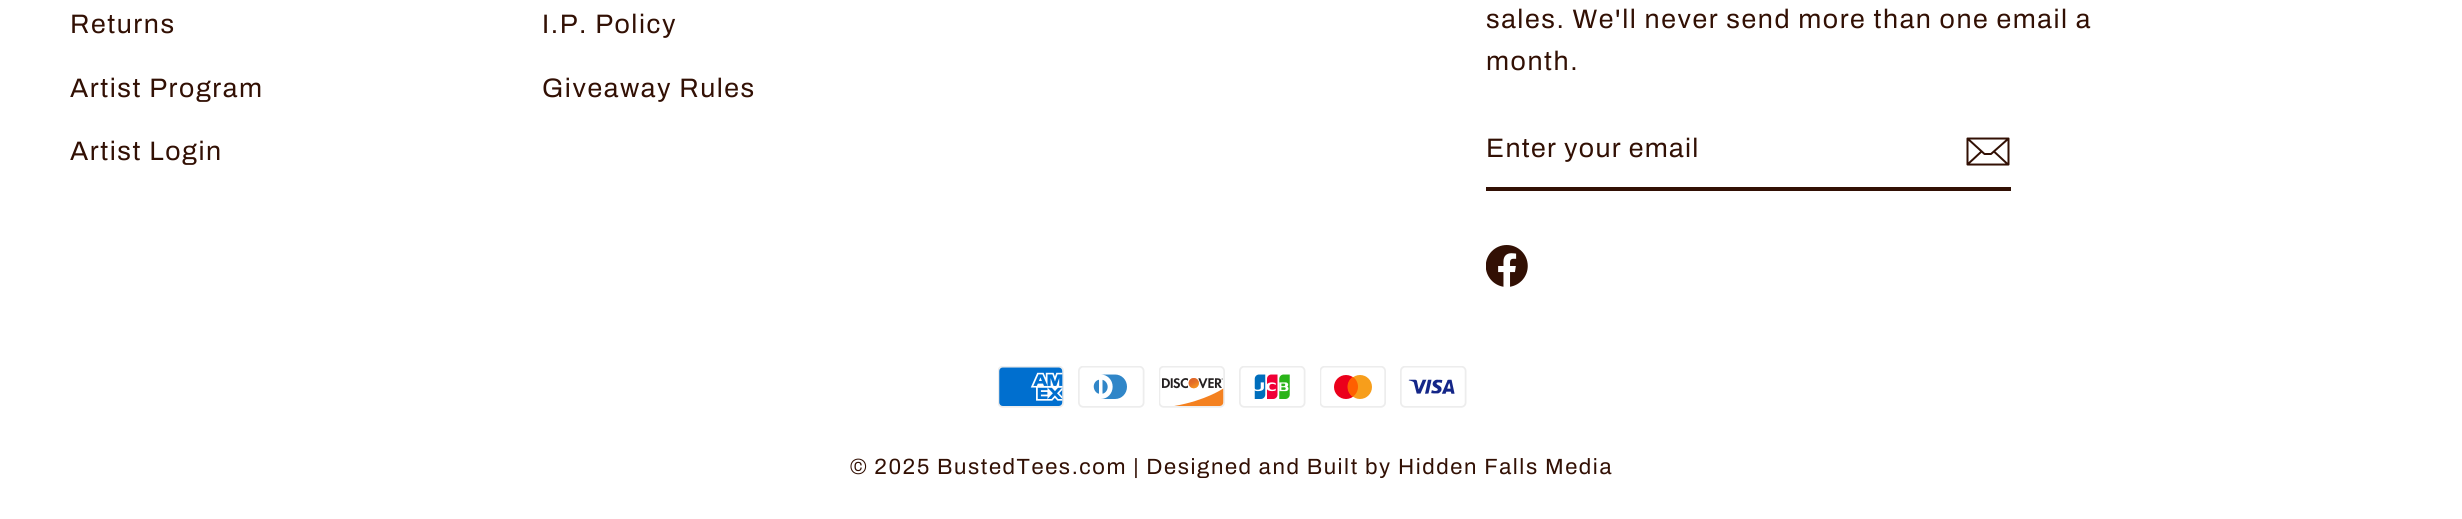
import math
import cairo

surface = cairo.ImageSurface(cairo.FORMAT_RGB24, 2462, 519)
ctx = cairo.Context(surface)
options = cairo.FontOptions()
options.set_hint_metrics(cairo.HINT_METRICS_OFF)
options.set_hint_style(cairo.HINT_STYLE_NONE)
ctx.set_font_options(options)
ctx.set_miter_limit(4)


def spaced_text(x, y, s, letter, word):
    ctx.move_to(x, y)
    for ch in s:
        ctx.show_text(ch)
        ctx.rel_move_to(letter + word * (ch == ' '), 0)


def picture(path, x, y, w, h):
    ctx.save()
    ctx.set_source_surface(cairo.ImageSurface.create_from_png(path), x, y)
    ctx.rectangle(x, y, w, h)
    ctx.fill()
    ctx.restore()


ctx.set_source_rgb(1, 1, 1)
ctx.paint()
ctx.select_font_face("Archivo")
ctx.set_font_size(26.75)
ctx.set_source_rgb(0.196, 0.063, 0.016)
spaced_text(70, 33, "Returns", 1.57, 0)
spaced_text(70, 97, "Artist Program", 1.57, 0)
spaced_text(70, 160, "Artist Login", 1.57, 0)
spaced_text(542, 33, "I.P. Policy", 1.57, 0)
spaced_text(542, 97, "Giveaway Rules", 1.57, 0)
spaced_text(1486, 28, "sales. We'll never send more than one email a", 1.57, 0)
spaced_text(1486, 70, "month.", 1.57, 0)
ctx.rectangle(1486, 187, 525, 4)
ctx.fill()
spaced_text(1486, 157, "Enter your email", 1.3, 0)
ctx.new_path()
ctx.move_to(2008.5, 164.5)
ctx.line_to(1967.5, 164.5)
ctx.line_to(1967.5, 138.5)
ctx.line_to(2008.5, 138.5)
ctx.close_path()
ctx.move_to(1967.5, 138.5)
ctx.line_to(1984.5, 154)
ctx.line_to(1991, 154)
ctx.line_to(2008.5, 138.5)
ctx.move_to(1981.5, 151.5)
ctx.line_to(1968, 164)
ctx.move_to(2008, 164.5)
ctx.line_to(1994, 151.5)
ctx.set_line_cap(cairo.LINE_CAP_ROUND)
ctx.set_line_join(cairo.LINE_JOIN_ROUND)
ctx.stroke()
picture("img1.png", 1486, 245, 42, 42)
picture("img2.png", 998, 366, 66, 42)
picture("img3.png", 1078, 366, 67, 42)
picture("img4.png", 1159, 366, 66, 42)
picture("img5.png", 1239, 366, 67, 42)
picture("img6.png", 1320, 366, 66, 42)
picture("img7.png", 1400, 366, 67, 42)
ctx.set_font_size(22.05)
spaced_text(850, 474, "© 2025 BustedTees.com | Designed and Built by Hidden Falls Media", 1.57, 0)
surface.write_to_png("page.png")
